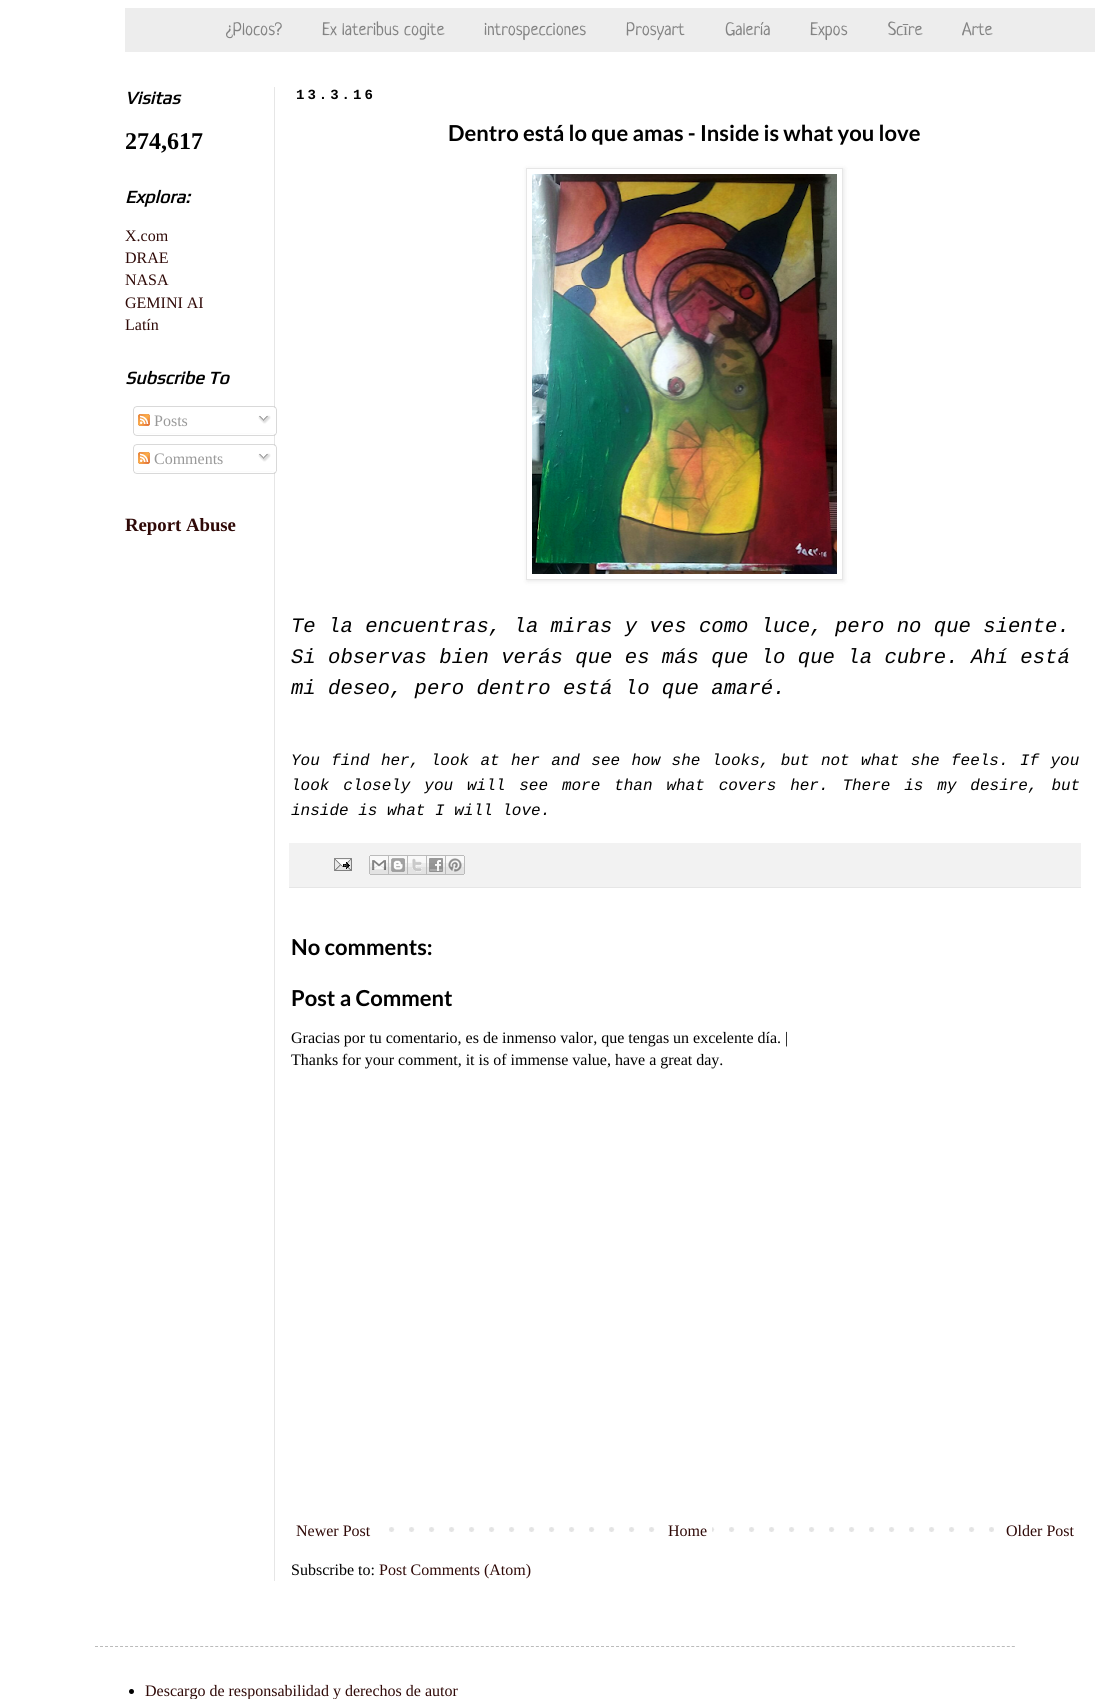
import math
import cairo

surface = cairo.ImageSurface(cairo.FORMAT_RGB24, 1109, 1699)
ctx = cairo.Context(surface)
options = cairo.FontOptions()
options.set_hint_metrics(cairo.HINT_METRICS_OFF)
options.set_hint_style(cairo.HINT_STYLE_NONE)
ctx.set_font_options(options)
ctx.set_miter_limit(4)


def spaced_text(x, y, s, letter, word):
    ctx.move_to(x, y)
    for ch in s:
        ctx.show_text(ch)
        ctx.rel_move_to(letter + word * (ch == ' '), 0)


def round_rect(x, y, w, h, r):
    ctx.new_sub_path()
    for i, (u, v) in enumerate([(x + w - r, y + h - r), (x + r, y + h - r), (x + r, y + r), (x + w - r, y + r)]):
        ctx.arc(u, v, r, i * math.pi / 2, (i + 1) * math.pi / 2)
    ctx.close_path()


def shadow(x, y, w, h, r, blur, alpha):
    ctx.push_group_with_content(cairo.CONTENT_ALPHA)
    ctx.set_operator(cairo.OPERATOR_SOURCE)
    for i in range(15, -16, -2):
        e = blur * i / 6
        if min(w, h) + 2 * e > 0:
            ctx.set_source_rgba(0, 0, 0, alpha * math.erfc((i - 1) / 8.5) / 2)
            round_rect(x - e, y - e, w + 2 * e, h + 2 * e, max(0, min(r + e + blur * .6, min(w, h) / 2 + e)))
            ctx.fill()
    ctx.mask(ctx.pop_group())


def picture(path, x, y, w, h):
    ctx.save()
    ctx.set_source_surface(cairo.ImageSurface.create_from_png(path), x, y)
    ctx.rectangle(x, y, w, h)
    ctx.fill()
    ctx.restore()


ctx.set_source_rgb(1, 1, 1)
ctx.paint()
ctx.set_source_rgb(0.929, 0.929, 0.929)
ctx.rectangle(125, 8, 970, 44)
ctx.fill()
ctx.select_font_face("Neucha")
ctx.set_font_size(18)
ctx.set_source_rgb(0.514, 0.514, 0.514)
ctx.move_to(226, 35)
ctx.show_text("¿Plocos?")
ctx.move_to(322, 35)
ctx.show_text("Ex lateribus cogite")
ctx.move_to(484, 35)
ctx.show_text("introspecciones")
ctx.move_to(626, 35)
ctx.show_text("Prosyart")
ctx.move_to(725, 35)
ctx.show_text("Galería")
ctx.move_to(810, 35)
ctx.show_text("Expos")
ctx.move_to(888, 35)
ctx.show_text("Sc")
ctx.select_font_face("Liberation Serif")
ctx.move_to(903, 35)
ctx.show_text("ī")
ctx.select_font_face("Neucha")
ctx.move_to(908, 35)
ctx.show_text("re")
ctx.move_to(962, 35)
ctx.show_text("Arte")
ctx.set_source_rgb(0.902, 0.902, 0.902)
ctx.rectangle(274, 87, 1, 1494)
ctx.fill()
ctx.select_font_face("Play", cairo.FONT_SLANT_ITALIC, cairo.FONT_WEIGHT_BOLD)
ctx.set_source_rgb(0, 0, 0)
ctx.move_to(125, 104)
ctx.show_text("Visitas")
ctx.select_font_face("Liberation Serif", cairo.FONT_SLANT_NORMAL, cairo.FONT_WEIGHT_BOLD)
ctx.set_font_size(24)
ctx.move_to(125, 149)
ctx.show_text("274,617")
ctx.select_font_face("Play", cairo.FONT_SLANT_ITALIC, cairo.FONT_WEIGHT_BOLD)
ctx.set_font_size(18)
ctx.move_to(125, 203)
ctx.show_text("Explora:")
ctx.select_font_face("Liberation Serif")
ctx.set_font_size(16)
ctx.set_source_rgb(0.184, 0.039, 0.031)
ctx.move_to(125, 241)
ctx.show_text("X.com")
ctx.move_to(125, 263)
ctx.show_text("DRAE")
ctx.move_to(125, 285)
ctx.show_text("NASA")
ctx.move_to(125, 308)
ctx.show_text("GEMINI AI")
ctx.move_to(125, 330)
ctx.show_text("Latín")
ctx.select_font_face("Play", cairo.FONT_SLANT_ITALIC, cairo.FONT_WEIGHT_BOLD)
ctx.set_font_size(18)
ctx.set_source_rgb(0, 0, 0)
ctx.move_to(125, 384)
ctx.show_text("Subscribe To")
picture("img1.png", 133, 406, 144, 27)
picture("img2.png", 138, 414, 12, 12)
ctx.select_font_face("Liberation Serif")
ctx.set_font_size(16)
ctx.set_source_rgb(0.6, 0.6, 0.6)
ctx.move_to(154, 426)
ctx.show_text("Posts")
picture("img3.png", 258, 415, 13, 9)
picture("img4.png", 133, 433, 144, 3)
picture("img1.png", 133, 444, 144, 27)
picture("img2.png", 138, 452, 12, 12)
ctx.move_to(154, 464)
ctx.show_text("Comments")
picture("img3.png", 258, 453, 13, 9)
picture("img4.png", 133, 471, 144, 3)
ctx.select_font_face("Liberation Serif", cairo.FONT_SLANT_NORMAL, cairo.FONT_WEIGHT_BOLD)
ctx.set_font_size(18.75)
ctx.set_source_rgb(0.184, 0.039, 0.031)
ctx.move_to(125, 531)
ctx.show_text("Report Abuse")
ctx.select_font_face("Liberation Mono", cairo.FONT_SLANT_NORMAL, cairo.FONT_WEIGHT_BOLD)
ctx.set_font_size(14)
ctx.set_source_rgb(0, 0, 0)
spaced_text(296, 99, "13.3.16", 3, 0)
ctx.select_font_face("Lato", cairo.FONT_SLANT_NORMAL, cairo.FONT_WEIGHT_BOLD)
ctx.set_font_size(22)
ctx.move_to(448, 141)
ctx.show_text("Dentro está lo que amas - Inside is what you love")
ctx.save()
ctx.set_fill_rule(cairo.FILL_RULE_EVEN_ODD)
ctx.new_path()
ctx.move_to(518, 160)
ctx.line_to(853, 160)
ctx.line_to(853, 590)
ctx.line_to(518, 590)
ctx.close_path()
ctx.move_to(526, 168)
ctx.line_to(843, 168)
ctx.line_to(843, 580)
ctx.line_to(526, 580)
ctx.close_path()
ctx.clip()
ctx.set_source_rgb(0, 0, 0)
shadow(527, 169, 317, 412, 0, 2.5, 0.1)
ctx.restore()
ctx.rectangle(526.5, 168.5, 316, 411)
ctx.set_source_rgb(0.902, 0.902, 0.902)
ctx.set_line_width(1)
ctx.stroke()
picture("img5.png", 532, 174, 305, 400)
ctx.select_font_face("Liberation Mono", cairo.FONT_SLANT_ITALIC)
ctx.set_font_size(20.6)
ctx.set_source_rgb(0, 0, 0)
ctx.move_to(291, 632)
ctx.show_text("Te la encuentras, la miras y ves como luce, pero no que siente.")
ctx.move_to(291, 663)
ctx.show_text("Si observas bien verás que es más que lo que la cubre. Ahí está")
ctx.move_to(291, 694)
ctx.show_text("mi deseo, pero dentro está lo que amaré.")
ctx.set_font_size(16)
spaced_text(291, 765, "You find her, look at her and see how she looks, but not what she feels. If you", 0, 1.75)
spaced_text(291, 790, "look closely you will see more than what covers her. There is my desire, but", 0, 4.25)
ctx.move_to(291, 815)
ctx.show_text("inside is what I will love.")
ctx.set_source_rgb(0.949, 0.949, 0.949)
ctx.rectangle(289, 843, 792, 44)
ctx.fill()
ctx.set_source_rgb(0.902, 0.902, 0.902)
ctx.rectangle(289, 887, 792, 1)
ctx.fill()
picture("img6.png", 334, 858, 18, 13)
picture("img7.png", 369, 855, 20, 20)
picture("img8.png", 389, 855, 19, 20)
picture("img9.png", 408, 855, 19, 20)
picture("img10.png", 427, 855, 19, 20)
picture("img11.png", 446, 855, 19, 20)
ctx.select_font_face("Lato", cairo.FONT_SLANT_NORMAL, cairo.FONT_WEIGHT_BOLD)
ctx.set_font_size(22)
ctx.set_source_rgb(0, 0, 0)
ctx.move_to(291, 955)
ctx.show_text("No comments:")
ctx.move_to(291, 1006)
ctx.show_text("Post a Comment")
ctx.select_font_face("Liberation Serif")
ctx.set_font_size(16)
ctx.move_to(291, 1043)
ctx.show_text("Gracias por tu comentario, es de inmenso valor, que tengas un excelente día. |")
ctx.move_to(291, 1065)
ctx.show_text("Thanks for your comment, it is of immense value, have a great day.")
picture("img12.png", 389, 1527, 605, 5)
ctx.set_source_rgb(0.184, 0.039, 0.031)
ctx.move_to(296, 1536)
ctx.show_text("Newer Post")
ctx.set_source_rgb(1, 1, 1)
ctx.rectangle(669, 1527, 43, 5)
ctx.fill()
ctx.set_source_rgb(0.184, 0.039, 0.031)
ctx.move_to(668, 1536)
ctx.show_text("Home")
ctx.move_to(1006, 1536)
ctx.show_text("Older Post")
ctx.set_source_rgb(0, 0, 0)
ctx.move_to(291, 1575)
ctx.show_text("Subscribe to:")
ctx.set_source_rgb(0.184, 0.039, 0.031)
ctx.move_to(379, 1575)
ctx.show_text("Post Comments (Atom)")
ctx.new_path()
ctx.move_to(95, 1646.5)
ctx.line_to(1015, 1646.5)
ctx.set_source_rgb(0.733, 0.733, 0.733)
ctx.set_dash([3, 2.01])
ctx.stroke()
ctx.set_source_rgb(0, 0, 0)
ctx.arc(131.5, 1691.5, 2.5, 0, 2 * math.pi)
ctx.fill()
ctx.set_source_rgb(0.184, 0.039, 0.031)
ctx.move_to(145, 1696)
ctx.show_text("Descargo de responsabilidad y derechos de autor")
surface.write_to_png("page.png")
